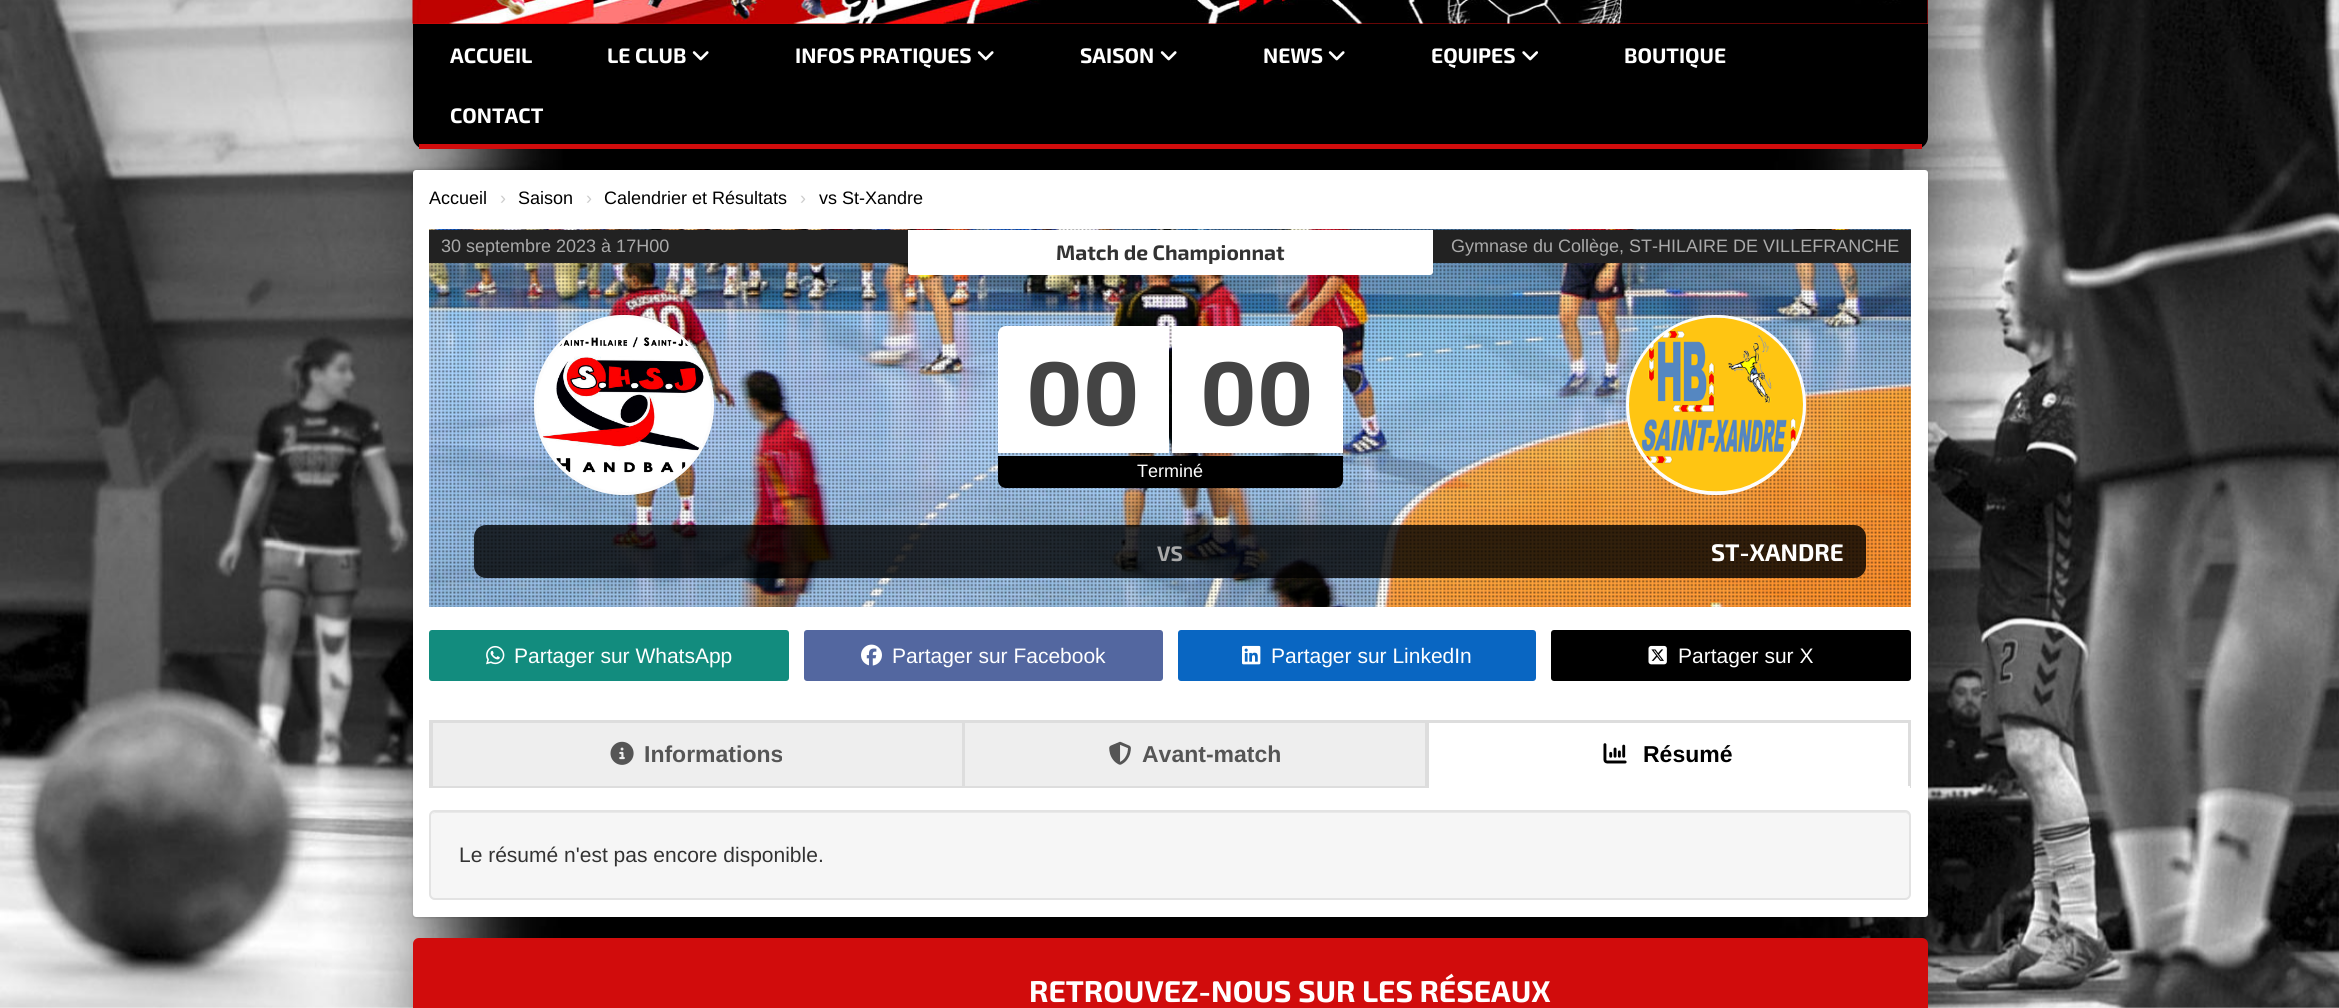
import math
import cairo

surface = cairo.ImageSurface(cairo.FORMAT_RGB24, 2339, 1008)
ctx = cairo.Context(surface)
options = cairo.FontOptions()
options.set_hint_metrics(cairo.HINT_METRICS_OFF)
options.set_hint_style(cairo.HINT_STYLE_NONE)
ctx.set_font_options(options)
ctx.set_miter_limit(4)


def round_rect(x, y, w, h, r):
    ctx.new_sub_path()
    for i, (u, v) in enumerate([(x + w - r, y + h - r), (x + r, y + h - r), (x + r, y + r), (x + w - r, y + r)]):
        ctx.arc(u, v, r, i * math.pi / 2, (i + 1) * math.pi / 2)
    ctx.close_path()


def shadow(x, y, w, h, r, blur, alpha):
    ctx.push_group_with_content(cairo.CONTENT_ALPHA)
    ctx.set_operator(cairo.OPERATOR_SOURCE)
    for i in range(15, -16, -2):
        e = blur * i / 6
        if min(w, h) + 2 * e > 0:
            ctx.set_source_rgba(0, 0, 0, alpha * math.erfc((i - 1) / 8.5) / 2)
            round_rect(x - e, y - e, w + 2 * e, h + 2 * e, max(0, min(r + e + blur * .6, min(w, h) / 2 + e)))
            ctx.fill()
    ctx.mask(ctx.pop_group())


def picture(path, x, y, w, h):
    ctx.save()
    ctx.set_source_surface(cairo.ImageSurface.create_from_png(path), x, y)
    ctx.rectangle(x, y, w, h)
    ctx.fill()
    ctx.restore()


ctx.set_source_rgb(1, 1, 1)
ctx.paint()
picture("img1.png", 0, 0, 2339, 1008)
ctx.set_source_rgb(0.82, 0.047, 0.047)
ctx.rectangle(413, 0, 1515, 24)
ctx.fill()
picture("img2.png", 412, 0, 1516, 24)
ctx.set_source_rgb(0, 0, 0)
ctx.new_path()
ctx.move_to(413, 24)
ctx.line_to(1928, 24)
ctx.line_to(1928, 137)
ctx.curve_to(1928, 143.5, 1922.5, 149, 1916, 149)
ctx.line_to(425, 149)
ctx.curve_to(418.5, 149, 413, 143.5, 413, 137)
ctx.close_path()
ctx.fill()
ctx.set_source_rgb(0.82, 0.047, 0.047)
ctx.rectangle(419, 144, 1503, 5)
ctx.fill()
ctx.select_font_face("Exo 2", cairo.FONT_SLANT_NORMAL, cairo.FONT_WEIGHT_BOLD)
ctx.set_font_size(21)
ctx.set_source_rgb(1, 1, 1)
ctx.move_to(450, 63)
ctx.show_text("ACCUEIL")
ctx.move_to(607, 63)
ctx.show_text("LE CLUB")
picture("img3.png", 692, 51, 17, 10)
ctx.move_to(795, 63)
ctx.show_text("INFOS PRATIQUES")
picture("img3.png", 977, 51, 17, 10)
ctx.move_to(1080, 63)
ctx.show_text("SAISON")
picture("img3.png", 1160, 51, 17, 10)
ctx.move_to(1263, 63)
ctx.show_text("NEWS")
picture("img3.png", 1328, 51, 17, 10)
ctx.move_to(1431, 63)
ctx.show_text("EQUIPES")
picture("img4.png", 1522, 51, 16, 10)
ctx.move_to(1624, 63)
ctx.show_text("BOUTIQUE")
ctx.move_to(450, 123)
ctx.show_text("CONTACT")
ctx.set_source_rgb(0, 0, 0)
shadow(413, 171, 1515, 747, 3, 1, 0.15)
ctx.set_source_rgb(1, 1, 1)
round_rect(413, 170, 1515, 747, 3)
ctx.fill()
ctx.select_font_face("Liberation Sans")
ctx.set_font_size(18)
ctx.set_source_rgb(0, 0, 0)
ctx.move_to(429, 204)
ctx.show_text("Accueil")
ctx.set_source_rgb(0.8, 0.8, 0.8)
ctx.move_to(500, 204)
ctx.show_text("›")
ctx.set_source_rgb(0, 0, 0)
ctx.move_to(518, 204)
ctx.show_text("Saison")
ctx.set_source_rgb(0.8, 0.8, 0.8)
ctx.move_to(586, 204)
ctx.show_text("›")
ctx.set_source_rgb(0, 0, 0)
ctx.move_to(604, 204)
ctx.show_text("Calendrier et Résultats")
ctx.set_source_rgb(0.8, 0.8, 0.8)
ctx.move_to(800, 204)
ctx.show_text("›")
ctx.set_source_rgb(0, 0, 0)
ctx.move_to(819, 204)
ctx.show_text("vs St-Xandre")
picture("img5.png", 429, 229, 1482, 378)
picture("img6.png", 429, 229, 1482, 378)
ctx.set_source_rgb(0.133, 0.133, 0.133)
ctx.rectangle(429, 230, 1482, 33)
ctx.fill()
ctx.set_source_rgb(0.667, 0.667, 0.667)
ctx.move_to(441, 252)
ctx.show_text("30 septembre 2023 à 17H00")
ctx.set_source_rgb(1, 1, 1)
ctx.new_path()
ctx.move_to(908, 230)
ctx.line_to(1433, 230)
ctx.line_to(1433, 272)
ctx.curve_to(1433, 273.5, 1431.5, 275, 1430, 275)
ctx.line_to(911, 275)
ctx.curve_to(909.5, 275, 908, 273.5, 908, 272)
ctx.close_path()
ctx.fill()
ctx.select_font_face("Exo 2", cairo.FONT_SLANT_NORMAL, cairo.FONT_WEIGHT_BOLD)
ctx.set_font_size(21)
ctx.set_source_rgb(0.2, 0.2, 0.2)
ctx.move_to(1056, 260)
ctx.show_text("Match de Championnat")
ctx.select_font_face("Liberation Sans")
ctx.set_font_size(18)
ctx.set_source_rgb(0.667, 0.667, 0.667)
ctx.move_to(1451, 252)
ctx.show_text("Gymnase du Collège, ST-HILAIRE DE VILLEFRANCHE")
ctx.set_source_rgb(1, 1, 1)
ctx.new_path()
ctx.arc(624, 405, 90, 0, 2 * math.pi)
ctx.fill()
ctx.arc(624, 405, 88.5, 0, 2 * math.pi)
ctx.set_source_rgba(0.98, 0.98, 0.98, 0.5)
ctx.set_line_width(3)
ctx.stroke()
picture("img7.png", 543, 337, 161, 136)
ctx.set_source_rgb(1, 1, 1)
ctx.new_path()
ctx.move_to(1006, 326)
ctx.line_to(1169, 326)
ctx.line_to(1169, 453)
ctx.line_to(998, 453)
ctx.line_to(998, 334)
ctx.curve_to(998, 329.5, 1001.5, 326, 1006, 326)
ctx.close_path()
ctx.fill()
ctx.select_font_face("Exo 2", cairo.FONT_SLANT_NORMAL, cairo.FONT_WEIGHT_BOLD)
ctx.set_font_size(90)
ctx.set_source_rgb(0.267, 0.267, 0.267)
ctx.move_to(1026, 425)
ctx.show_text("00")
ctx.set_source_rgb(1, 1, 1)
ctx.new_path()
ctx.move_to(1172, 326)
ctx.line_to(1335, 326)
ctx.curve_to(1339.5, 326, 1343, 329.5, 1343, 334)
ctx.line_to(1343, 453)
ctx.line_to(1172, 453)
ctx.close_path()
ctx.fill()
ctx.set_source_rgb(0.267, 0.267, 0.267)
ctx.move_to(1200, 425)
ctx.show_text("00")
ctx.set_source_rgb(0, 0, 0)
ctx.new_path()
ctx.move_to(998, 456)
ctx.line_to(1343, 456)
ctx.line_to(1343, 480)
ctx.curve_to(1343, 484.5, 1339.5, 488, 1335, 488)
ctx.line_to(1006, 488)
ctx.curve_to(1001.5, 488, 998, 484.5, 998, 480)
ctx.close_path()
ctx.fill()
ctx.select_font_face("Liberation Sans")
ctx.set_font_size(18)
ctx.set_source_rgb(1, 1, 1)
ctx.move_to(1137, 477)
ctx.show_text("Terminé")
ctx.new_path()
ctx.arc(1716, 405, 90, 0, 2 * math.pi)
ctx.fill()
ctx.arc(1716, 405, 88.5, 0, 2 * math.pi)
ctx.set_source_rgba(0.98, 0.98, 0.98, 0.5)
ctx.stroke()
picture("img8.png", 1629, 317, 174, 175)
ctx.set_source_rgba(0, 0, 0, 0.8)
round_rect(474, 525, 1392, 53, 12)
ctx.fill()
ctx.select_font_face("Exo 2", cairo.FONT_SLANT_NORMAL, cairo.FONT_WEIGHT_BOLD)
ctx.set_font_size(21)
ctx.set_source_rgb(0.667, 0.667, 0.667)
ctx.move_to(1157, 561)
ctx.show_text("VS")
ctx.set_font_size(24)
ctx.set_source_rgb(1, 1, 1)
ctx.move_to(1711, 561)
ctx.show_text("ST-XANDRE")
ctx.set_source_rgb(0.071, 0.549, 0.494)
round_rect(430, 631, 358, 49, 2)
ctx.fill_preserve()
ctx.set_line_width(2)
ctx.stroke()
picture("img9.png", 486, 645, 19, 20)
ctx.select_font_face("Liberation Sans")
ctx.set_font_size(21)
ctx.set_source_rgb(1, 1, 1)
ctx.move_to(514, 663)
ctx.show_text("Partager sur WhatsApp")
ctx.set_source_rgb(0.325, 0.404, 0.627)
round_rect(805, 631, 357, 49, 2)
ctx.fill_preserve()
ctx.stroke()
picture("img10.png", 861, 644, 21, 22)
ctx.set_source_rgb(1, 1, 1)
ctx.move_to(892, 663)
ctx.show_text("Partager sur Facebook")
ctx.set_source_rgb(0.039, 0.4, 0.761)
round_rect(1179, 631, 356, 49, 2)
ctx.fill_preserve()
ctx.stroke()
picture("img11.png", 1242, 645, 19, 20)
ctx.set_source_rgb(1, 1, 1)
ctx.move_to(1271, 663)
ctx.show_text("Partager sur LinkedIn")
ctx.set_source_rgb(0, 0, 0)
round_rect(1552, 631, 358, 49, 2)
ctx.fill_preserve()
ctx.stroke()
picture("img12.png", 1648, 645, 19, 20)
ctx.set_source_rgb(1, 1, 1)
ctx.move_to(1678, 663)
ctx.show_text("Partager sur X")
ctx.set_source_rgb(0.867, 0.867, 0.867)
ctx.rectangle(1910, 720, 1, 68)
ctx.fill()
ctx.rectangle(429, 720, 2, 68)
ctx.fill()
ctx.set_source_rgb(0.933, 0.933, 0.933)
ctx.rectangle(433, 723, 529, 63)
ctx.fill()
ctx.set_source_rgb(0.867, 0.867, 0.867)
ctx.rectangle(431, 720, 1479, 3)
ctx.fill()
ctx.rectangle(962, 720, 1, 68)
ctx.fill()
ctx.rectangle(431, 786, 532, 2)
ctx.fill()
ctx.rectangle(431, 720, 2, 68)
ctx.fill()
picture("img13.png", 610, 741, 24, 24)
ctx.select_font_face("Liberation Sans", cairo.FONT_SLANT_NORMAL, cairo.FONT_WEIGHT_BOLD)
ctx.set_font_size(23)
ctx.set_source_rgb(0.333, 0.333, 0.333)
ctx.move_to(644, 762)
ctx.show_text("Informations")
ctx.set_source_rgb(0.933, 0.933, 0.933)
ctx.rectangle(965, 723, 460, 63)
ctx.fill()
ctx.set_source_rgb(0.867, 0.867, 0.867)
ctx.rectangle(1425, 720, 4, 68)
ctx.fill()
ctx.rectangle(963, 786, 464, 2)
ctx.fill()
ctx.rectangle(963, 720, 2, 68)
ctx.fill()
picture("img14.png", 1109, 741, 22, 24)
ctx.set_source_rgb(0.333, 0.333, 0.333)
ctx.move_to(1142, 762)
ctx.show_text("Avant-match")
ctx.set_source_rgb(0.867, 0.867, 0.867)
ctx.rectangle(1908, 720, 2, 68)
ctx.fill()
ctx.set_source_rgb(1, 1, 1)
ctx.rectangle(1908, 786, 2, 2)
ctx.fill()
picture("img15.png", 1603, 743, 24, 21)
ctx.set_source_rgb(0, 0, 0)
ctx.move_to(1643, 762)
ctx.show_text("Résumé")
ctx.set_source_rgb(0.961, 0.961, 0.961)
round_rect(429, 810, 1482, 90, 6)
ctx.fill()
ctx.set_source_rgb(0.914, 0.914, 0.914)
ctx.new_path()
ctx.move_to(435, 813)
ctx.line_to(1905, 813)
ctx.curve_to(1907, 813, 1910, 815, 1910, 818)
ctx.line_to(1910, 817)
ctx.curve_to(1910, 814, 1908, 812, 1905, 812)
ctx.line_to(436, 812)
ctx.curve_to(434, 812, 433, 813, 432, 814)
ctx.close_path()
ctx.fill()
round_rect(430, 811, 1480, 88, 5)
ctx.set_source_rgb(0.89, 0.89, 0.89)
ctx.stroke()
ctx.select_font_face("Liberation Sans")
ctx.set_font_size(21)
ctx.set_source_rgb(0.2, 0.2, 0.2)
ctx.move_to(459, 862)
ctx.show_text("Le résumé n'est pas encore disponible.")
ctx.set_source_rgb(0.82, 0.047, 0.047)
round_rect(413, 938, 1515, 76, 6)
ctx.fill()
ctx.select_font_face("Exo 2", cairo.FONT_SLANT_NORMAL, cairo.FONT_WEIGHT_BOLD)
ctx.set_font_size(30)
ctx.set_source_rgb(1, 1, 1)
ctx.move_to(1029, 1002)
ctx.show_text("RETROUVEZ-NOUS SUR LES RÉSEAUX")
surface.write_to_png("page.png")
